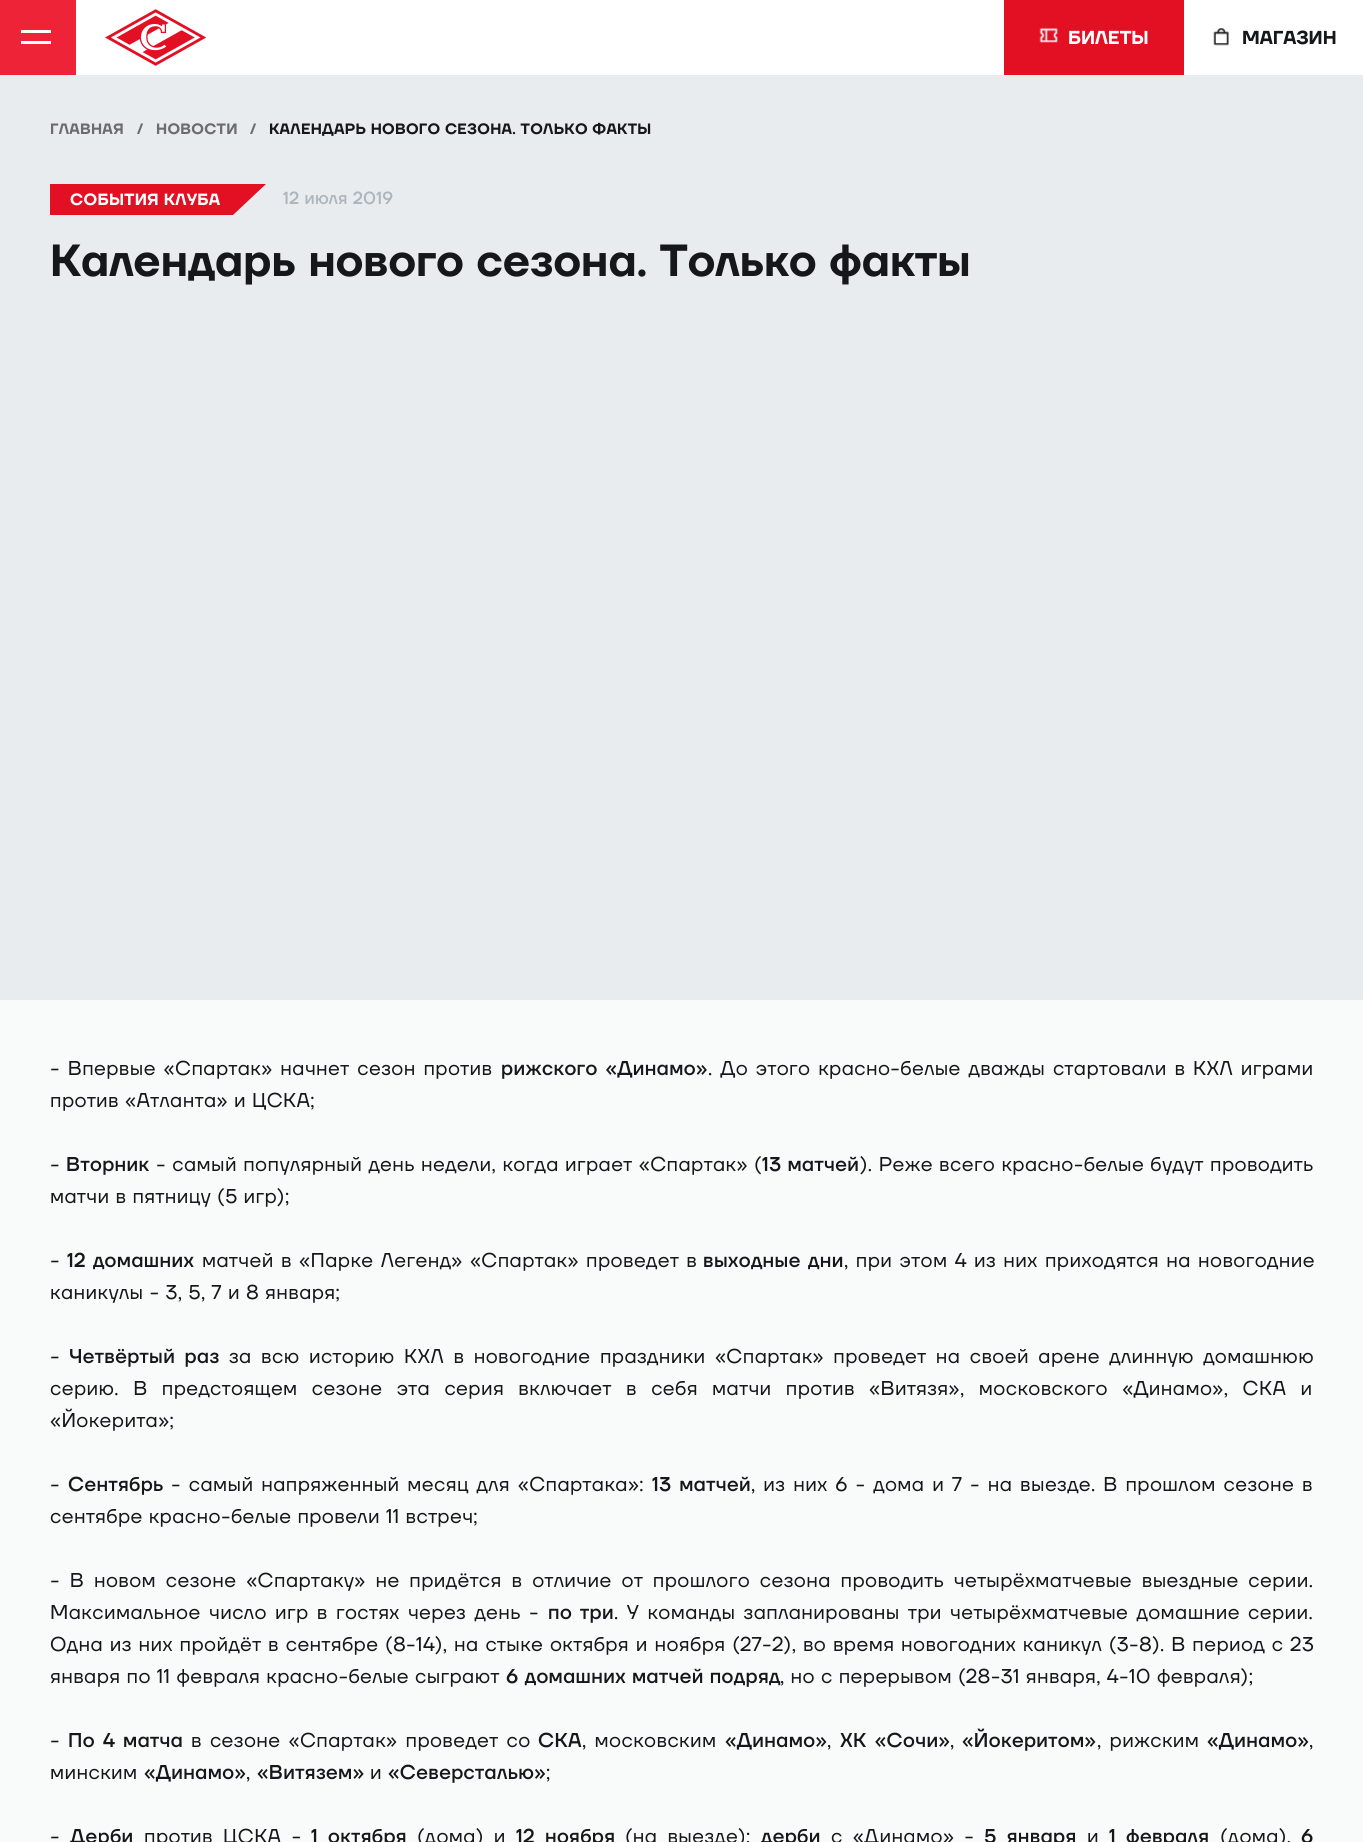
import math
import cairo

surface = cairo.ImageSurface(cairo.FORMAT_RGB24, 1363, 1842)
ctx = cairo.Context(surface)
options = cairo.FontOptions()
options.set_hint_metrics(cairo.HINT_METRICS_OFF)
options.set_hint_style(cairo.HINT_STYLE_NONE)
ctx.set_font_options(options)
ctx.set_miter_limit(4)


def spaced_text(x, y, s, letter, word):
    ctx.move_to(x, y)
    for ch in s:
        ctx.show_text(ch)
        ctx.rel_move_to(letter + word * (ch == ' '), 0)


def picture(path, x, y, w, h):
    ctx.save()
    ctx.set_source_surface(cairo.ImageSurface.create_from_png(path), x, y)
    ctx.rectangle(x, y, w, h)
    ctx.fill()
    ctx.restore()


ctx.set_source_rgb(0.914, 0.925, 0.937)
ctx.paint()
ctx.set_source_rgb(1, 1, 1)
ctx.rectangle(76, 0, 1287, 75)
ctx.fill()
ctx.set_source_rgb(0.937, 0.137, 0.22)
ctx.rectangle(0, 0, 76, 75)
ctx.fill()
ctx.set_source_rgb(1, 1, 1)
ctx.rectangle(21, 30, 30, 3)
ctx.fill()
ctx.rectangle(21, 41, 30, 3)
ctx.fill()
picture("img1.png", 105, 9, 101, 57)
ctx.set_source_rgb(0.89, 0.063, 0.141)
ctx.rectangle(1004, 0, 180, 75)
ctx.fill()
picture("img2.png", 1039, 28, 19, 15)
ctx.select_font_face("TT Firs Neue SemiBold")
ctx.set_font_size(18.75)
ctx.set_source_rgb(1, 1, 1)
ctx.move_to(1068, 44)
ctx.show_text("БИЛЕТЫ")
picture("img3.png", 1213, 28, 16, 18)
ctx.set_source_rgb(0.086, 0.09, 0.106)
ctx.move_to(1242, 44)
ctx.show_text("МАГАЗИН")
ctx.set_font_size(15)
ctx.set_source_rgb(0.416, 0.424, 0.439)
spaced_text(50, 134, "ГЛАВНАЯ", 0.3, 0)
spaced_text(137, 134, "/", 0.3, 0)
spaced_text(156, 134, "НОВОСТИ", 0.3, 0)
spaced_text(250, 134, "/", 0.3, 0)
ctx.set_source_rgb(0.086, 0.09, 0.106)
spaced_text(269, 134, "КАЛЕНДАРЬ НОВОГО СЕЗОНА. ТОЛЬКО ФАКТЫ", 0.3, 0)
ctx.set_source_rgb(0.89, 0.063, 0.141)
ctx.new_path()
ctx.move_to(216, 184)
ctx.line_to(266, 184)
ctx.line_to(233, 215)
ctx.line_to(183, 215)
ctx.close_path()
ctx.fill()
ctx.rectangle(50, 184, 166, 31)
ctx.fill()
ctx.set_font_size(16.25)
ctx.set_source_rgb(1, 1, 1)
spaced_text(70, 205, "СОБЫТИЯ КЛУБА", 0.3, 0)
ctx.select_font_face("TT Firs Neue Medium")
ctx.set_font_size(17.5)
ctx.set_source_rgb(0.678, 0.71, 0.741)
spaced_text(283, 204, "12 июля 2019", 0.25, 0)
ctx.select_font_face("TT Firs Neue SemiBold")
ctx.set_font_size(45)
ctx.set_source_rgb(0.086, 0.09, 0.106)
spaced_text(50, 276, "Календарь нового сезона. Только факты", 0.1, 0)
ctx.set_source_rgb(0.976, 0.98, 0.98)
ctx.rectangle(0, 1000, 1363, 842)
ctx.fill()
ctx.select_font_face("TT Firs Neue")
ctx.set_font_size(20)
ctx.set_source_rgb(0.086, 0.09, 0.106)
spaced_text(50, 1075, "- Впервые «Спартак» начнет сезон против", 0.4, 1.75)
ctx.select_font_face("TT Firs Neue Medium")
spaced_text(501, 1075, "рижского «Динамо»", 0.4, 1.75)
ctx.select_font_face("TT Firs Neue")
spaced_text(708, 1075, ". До этого красно-белые дважды стартовали в КХЛ играми", 0.4, 1.75)
spaced_text(50, 1107, "против «Атланта» и ЦСКА;", 0.4, 0)
spaced_text(50, 1171, "-", 0.4, 0)
ctx.select_font_face("TT Firs Neue Medium")
spaced_text(66, 1171, "Вторник", 0.4, 0)
ctx.select_font_face("TT Firs Neue")
spaced_text(156, 1171, "- самый популярный день недели, когда играет «Спартак» (", 0.4, 0.25)
ctx.select_font_face("TT Firs Neue Medium")
spaced_text(762, 1171, "13 матчей", 0.4, 0)
ctx.select_font_face("TT Firs Neue")
spaced_text(860, 1171, "). Реже всего красно-белые будут проводить", 0.4, 0.25)
spaced_text(50, 1203, "матчи в пятницу (5 игр);", 0.4, 0)
spaced_text(50, 1267, "-", 0.4, 0)
ctx.select_font_face("TT Firs Neue Medium")
spaced_text(67, 1267, "12 домашних", 0.4, 1)
ctx.select_font_face("TT Firs Neue")
spaced_text(202, 1267, "матчей в «Парке Легенд» «Спартак» проведет в", 0.4, 1.25)
ctx.select_font_face("TT Firs Neue Medium")
spaced_text(703, 1267, "выходные дни", 0.4, 1.25)
ctx.select_font_face("TT Firs Neue")
spaced_text(844, 1267, ", при этом 4 из них приходятся на новогодние", 0.4, 1.25)
spaced_text(50, 1299, "каникулы - 3, 5, 7 и 8 января;", 0.4, 0)
spaced_text(50, 1363, "-", 0.4, 0)
ctx.select_font_face("TT Firs Neue Medium")
spaced_text(69, 1363, "Четвёртый раз", 0.4, 3.4)
ctx.select_font_face("TT Firs Neue")
spaced_text(229, 1363, "за всю историю КХЛ в новогодние праздники «Спартак» проведет на своей арене длинную домашнюю", 0.4, 3.4)
spaced_text(50, 1395, "серию. В предстоящем сезоне эта серия включает в себя матчи против «Витязя», московского «Динамо», СКА и", 0.4, 8.25)
spaced_text(50, 1427, "«Йокерита»;", 0.4, 0)
spaced_text(50, 1491, "-", 0.4, 0)
ctx.select_font_face("TT Firs Neue Medium")
spaced_text(68, 1491, "Сентябрь", 0.4, 0)
ctx.select_font_face("TT Firs Neue")
spaced_text(171, 1491, "- самый напряженный месяц для «Спартака»:", 0.4, 1.75)
ctx.select_font_face("TT Firs Neue Medium")
spaced_text(652, 1491, "13 матчей", 0.4, 1.75)
ctx.select_font_face("TT Firs Neue")
spaced_text(751, 1491, ", из них 6 - дома и 7 - на выезде. В прошлом сезоне в", 0.4, 1.75)
spaced_text(50, 1523, "сентябре красно-белые провели 11 встреч;", 0.4, 0)
spaced_text(50, 1587, "- В новом сезоне «Спартаку» не придётся в отличие от прошлого сезона проводить четырёхматчевые выездные серии.", 0.4, 3.75)
spaced_text(50, 1619, "Максимальное число игр в гостях через день -", 0.4, 2.25)
ctx.select_font_face("TT Firs Neue Medium")
spaced_text(548, 1619, "по", 0.4, 0)
spaced_text(580, 1619, "три", 0.4, 0)
ctx.select_font_face("TT Firs Neue")
spaced_text(614, 1619, ". У команды запланированы три четырёхматчевые домашние серии.", 0.4, 2.25)
spaced_text(50, 1651, "Одна из них пройдёт в сентябре (8-14), на стыке октября и ноября (27-2), во время новогодних каникул (3-8). В период с 23", 0.4, 0.7)
spaced_text(50, 1683, "января по 11 февраля красно-белые сыграют", 0.4, 0)
ctx.select_font_face("TT Firs Neue Medium")
spaced_text(506, 1683, "6 домашних матчей подряд", 0.4, 0)
ctx.select_font_face("TT Firs Neue")
spaced_text(780, 1683, ", но с перерывом (28-31 января, 4-10 февраля);", 0.4, 0)
spaced_text(50, 1747, "-", 0.4, 0)
ctx.select_font_face("TT Firs Neue Medium")
spaced_text(68, 1747, "По", 0.4, 0)
spaced_text(103, 1747, "4 матча", 0.4, 2)
ctx.select_font_face("TT Firs Neue")
spaced_text(191, 1747, "в сезоне «Спартак» проведет со", 0.4, 2)
ctx.select_font_face("TT Firs Neue Medium")
spaced_text(538, 1747, "СКА", 0.4, 0)
ctx.select_font_face("TT Firs Neue")
spaced_text(582, 1747, ", московским", 0.4, 2)
ctx.select_font_face("TT Firs Neue Medium")
spaced_text(725, 1747, "«Динамо»", 0.4, 0)
spaced_text(840, 1747, "ХК «Сочи»", 0.4, 2)
spaced_text(962, 1747, "«Йокеритом»", 0.4, 0)
ctx.select_font_face("TT Firs Neue")
spaced_text(1097, 1747, ", рижским", 0.4, 2)
ctx.select_font_face("TT Firs Neue Medium")
spaced_text(1207, 1747, "«Динамо»", 0.4, 0)
ctx.select_font_face("TT Firs Neue")
spaced_text(827, 1747, ",", 0.4, 0)
spaced_text(950, 1747, ",", 0.4, 0)
spaced_text(1309, 1747, ",", 0.4, 0)
spaced_text(50, 1779, "минским", 0.4, 0)
ctx.select_font_face("TT Firs Neue Medium")
spaced_text(144, 1779, "«Динамо»", 0.4, 0)
ctx.select_font_face("TT Firs Neue")
spaced_text(246, 1779, ",", 0.4, 0)
ctx.select_font_face("TT Firs Neue Medium")
spaced_text(257, 1779, "«Витязем»", 0.4, 0)
ctx.select_font_face("TT Firs Neue")
spaced_text(370, 1779, "и", 0.4, 0)
ctx.select_font_face("TT Firs Neue Medium")
spaced_text(388, 1779, "«Северсталью»", 0.4, 0)
ctx.select_font_face("TT Firs Neue")
spaced_text(546, 1779, ";", 0.4, 0)
spaced_text(50, 1843, "-", 0.4, 0)
ctx.select_font_face("TT Firs Neue Medium")
spaced_text(70, 1843, "Дерби", 0.4, 0)
ctx.select_font_face("TT Firs Neue")
spaced_text(144, 1843, "против ЦСКА -", 0.4, 4)
ctx.select_font_face("TT Firs Neue Medium")
spaced_text(311, 1843, "1 октября", 0.4, 4)
ctx.select_font_face("TT Firs Neue")
spaced_text(417, 1843, "(дома) и", 0.4, 4)
ctx.select_font_face("TT Firs Neue Medium")
spaced_text(516, 1843, "12 ноября", 0.4, 4)
ctx.select_font_face("TT Firs Neue")
spaced_text(625, 1843, "(на выезде);", 0.4, 4)
ctx.select_font_face("TT Firs Neue Medium")
spaced_text(761, 1843, "дерби", 0.4, 0)
ctx.select_font_face("TT Firs Neue")
spaced_text(831, 1843, "с «Динамо» -", 0.4, 4)
ctx.select_font_face("TT Firs Neue Medium")
spaced_text(984, 1843, "5 января", 0.4, 4)
ctx.select_font_face("TT Firs Neue")
spaced_text(1087, 1843, "и", 0.4, 0)
ctx.select_font_face("TT Firs Neue Medium")
spaced_text(1109, 1843, "1 февраля", 0.4, 4)
ctx.select_font_face("TT Firs Neue")
spaced_text(1220, 1843, "(дома),", 0.4, 0)
ctx.select_font_face("TT Firs Neue Medium")
spaced_text(1301, 1843, "6", 0.4, 0)
surface.write_to_png("page.png")
